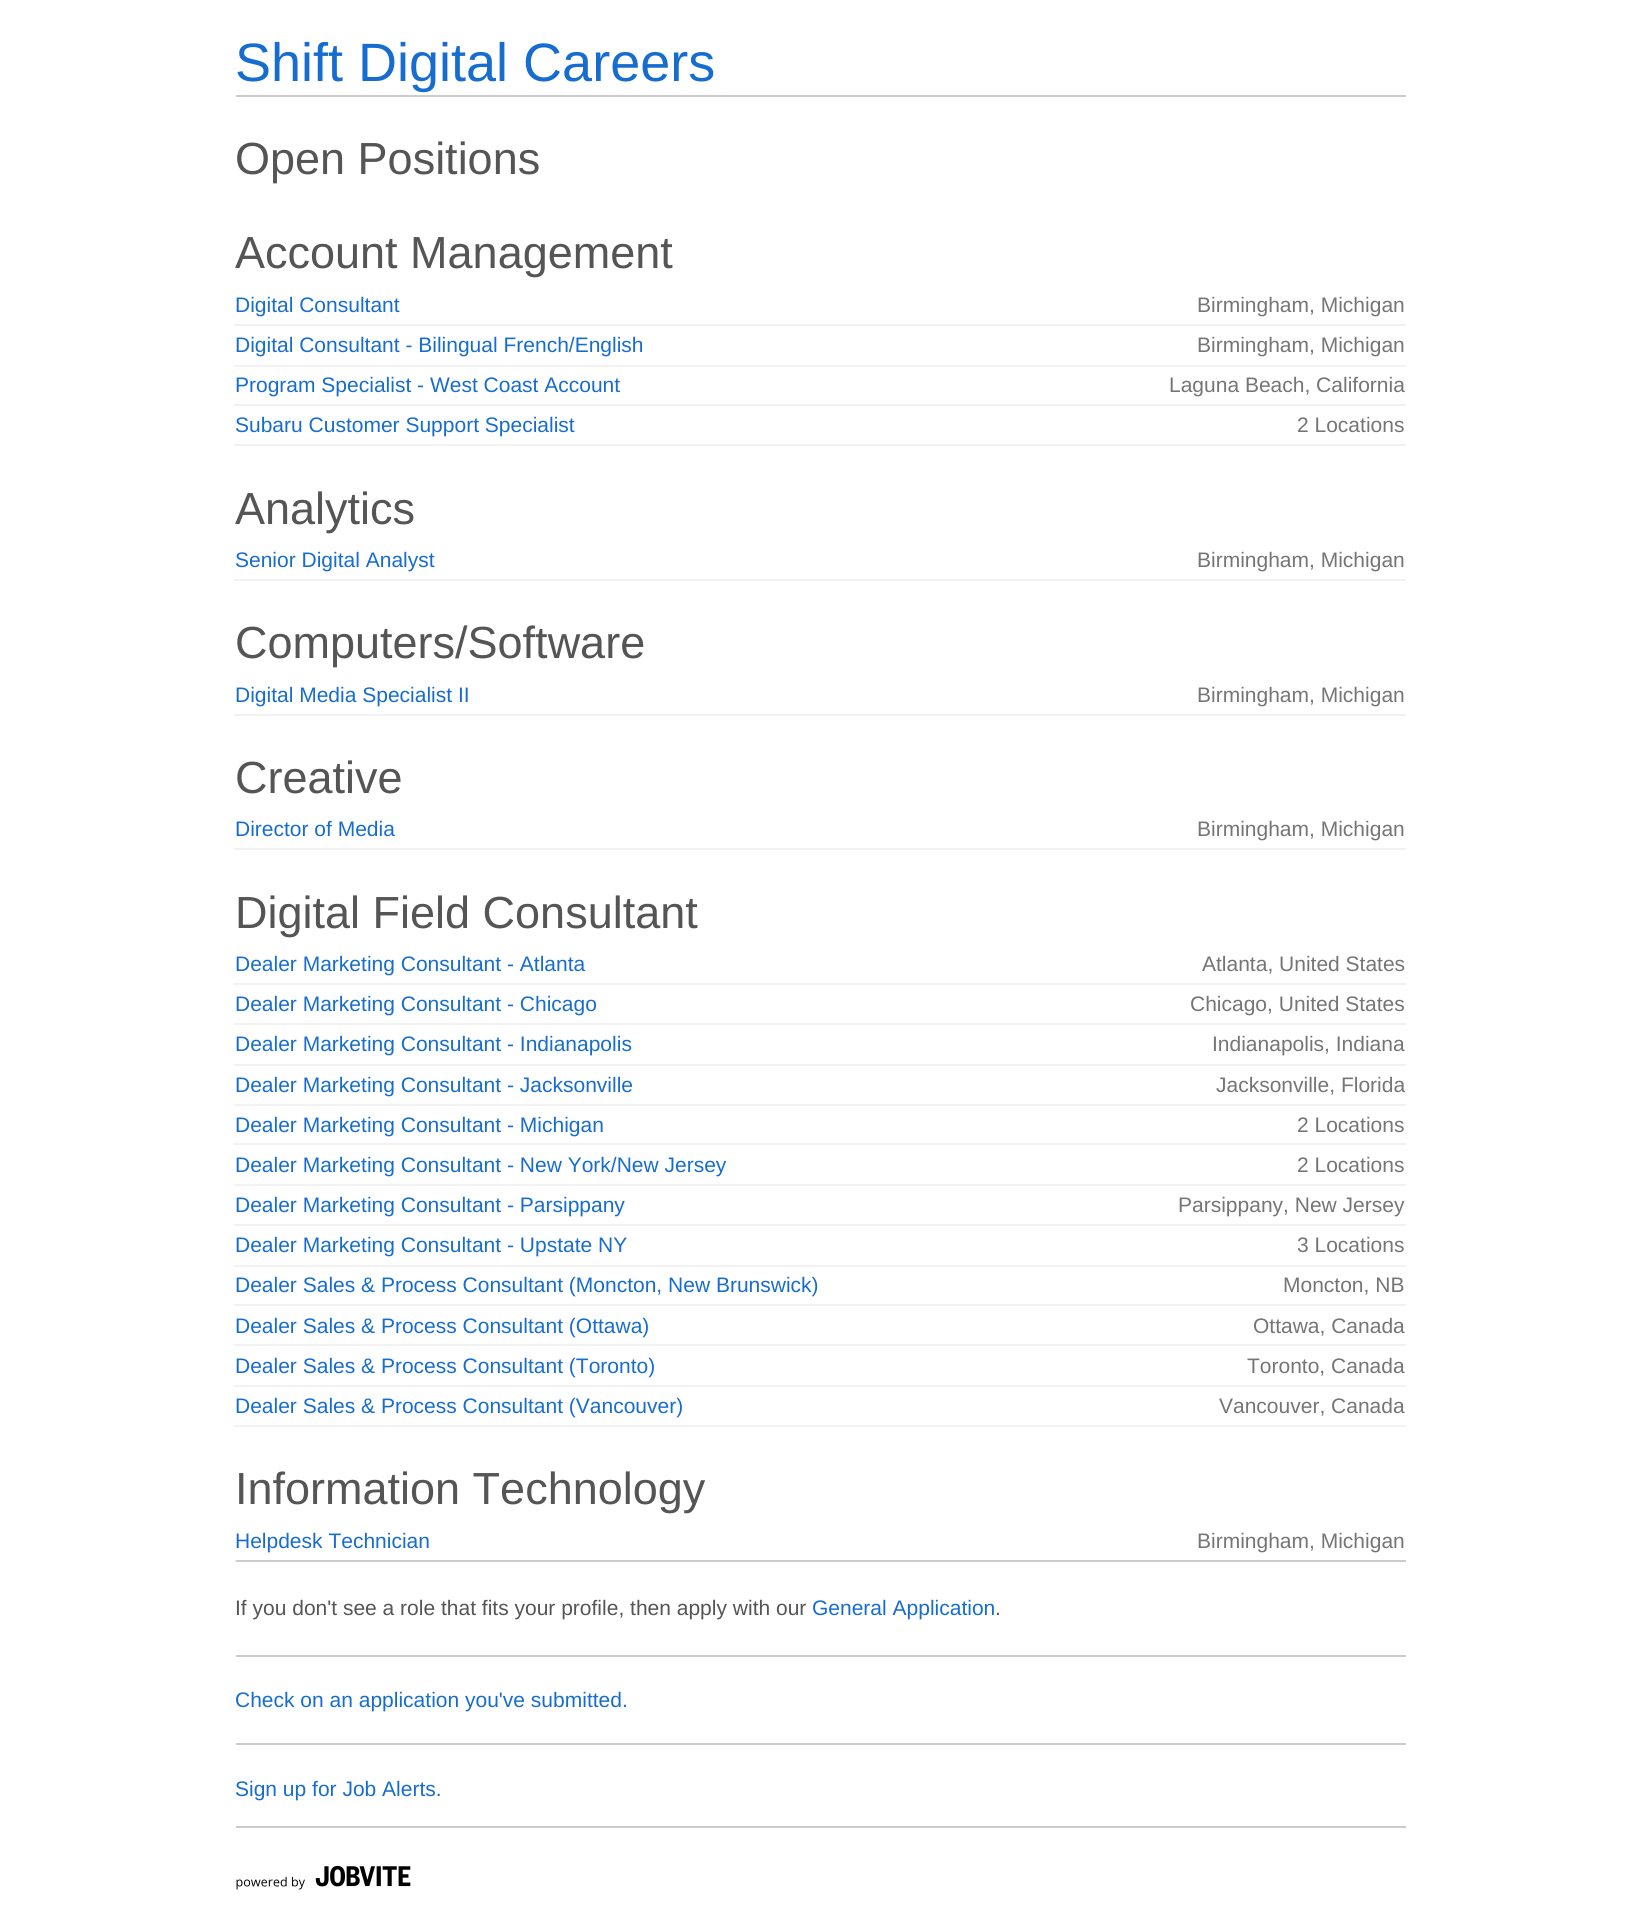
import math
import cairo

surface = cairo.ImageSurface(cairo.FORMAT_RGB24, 1639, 1920)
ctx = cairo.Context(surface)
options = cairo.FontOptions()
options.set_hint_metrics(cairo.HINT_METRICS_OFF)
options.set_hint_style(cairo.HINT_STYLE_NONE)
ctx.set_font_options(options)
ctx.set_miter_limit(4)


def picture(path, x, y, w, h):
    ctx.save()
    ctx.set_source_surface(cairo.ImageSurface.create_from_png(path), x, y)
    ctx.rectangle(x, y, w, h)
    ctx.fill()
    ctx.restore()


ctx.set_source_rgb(1, 1, 1)
ctx.paint()
ctx.set_source_rgb(0.8, 0.8, 0.8)
ctx.rectangle(236, 95, 1170, 2)
ctx.fill()
ctx.select_font_face("Liberation Sans")
ctx.set_font_size(54)
ctx.set_source_rgb(0.09, 0.427, 0.812)
ctx.move_to(235, 81)
ctx.show_text("Shift Digital Careers")
ctx.set_font_size(45)
ctx.set_source_rgb(0.333, 0.333, 0.333)
ctx.move_to(235, 174)
ctx.show_text("Open Positions")
ctx.move_to(235, 268)
ctx.show_text("Account Management")
ctx.set_font_size(21)
ctx.set_source_rgb(0.09, 0.427, 0.812)
ctx.move_to(235, 312)
ctx.show_text("Digital Consultant")
ctx.set_source_rgb(0.949, 0.949, 0.949)
ctx.rectangle(234, 324, 1172, 2)
ctx.fill()
ctx.set_source_rgb(0.459, 0.459, 0.459)
ctx.move_to(1197, 312)
ctx.show_text("Birmingham, Michigan")
ctx.set_source_rgb(0.09, 0.427, 0.812)
ctx.move_to(235, 352)
ctx.show_text("Digital Consultant - Bilingual French/English")
ctx.set_source_rgb(0.949, 0.949, 0.949)
ctx.rectangle(234, 365, 1172, 2)
ctx.fill()
ctx.set_source_rgb(0.459, 0.459, 0.459)
ctx.move_to(1197, 352)
ctx.show_text("Birmingham, Michigan")
ctx.set_source_rgb(0.09, 0.427, 0.812)
ctx.move_to(235, 392)
ctx.show_text("Program Specialist - West Coast Account")
ctx.set_source_rgb(0.949, 0.949, 0.949)
ctx.rectangle(234, 404, 1172, 2)
ctx.fill()
ctx.set_source_rgb(0.459, 0.459, 0.459)
ctx.move_to(1169, 392)
ctx.show_text("Laguna Beach, California")
ctx.set_source_rgb(0.09, 0.427, 0.812)
ctx.move_to(235, 432)
ctx.show_text("Subaru Customer Support Specialist")
ctx.set_source_rgb(0.949, 0.949, 0.949)
ctx.rectangle(234, 444, 1172, 2)
ctx.fill()
ctx.set_source_rgb(0.459, 0.459, 0.459)
ctx.move_to(1297, 432)
ctx.show_text("2 Locations")
ctx.set_font_size(45)
ctx.set_source_rgb(0.333, 0.333, 0.333)
ctx.move_to(235, 524)
ctx.show_text("Analytics")
ctx.set_font_size(21)
ctx.set_source_rgb(0.09, 0.427, 0.812)
ctx.move_to(235, 567)
ctx.show_text("Senior Digital Analyst")
ctx.set_source_rgb(0.949, 0.949, 0.949)
ctx.rectangle(234, 579, 1172, 2)
ctx.fill()
ctx.set_source_rgb(0.459, 0.459, 0.459)
ctx.move_to(1197, 567)
ctx.show_text("Birmingham, Michigan")
ctx.set_font_size(45)
ctx.set_source_rgb(0.333, 0.333, 0.333)
ctx.move_to(235, 658)
ctx.show_text("Computers/Software")
ctx.set_font_size(21)
ctx.set_source_rgb(0.09, 0.427, 0.812)
ctx.move_to(235, 702)
ctx.show_text("Digital Media Specialist II")
ctx.set_source_rgb(0.949, 0.949, 0.949)
ctx.rectangle(234, 714, 1172, 2)
ctx.fill()
ctx.set_source_rgb(0.459, 0.459, 0.459)
ctx.move_to(1197, 702)
ctx.show_text("Birmingham, Michigan")
ctx.set_font_size(45)
ctx.set_source_rgb(0.333, 0.333, 0.333)
ctx.move_to(235, 793)
ctx.show_text("Creative")
ctx.set_font_size(21)
ctx.set_source_rgb(0.09, 0.427, 0.812)
ctx.move_to(235, 836)
ctx.show_text("Director of Media")
ctx.set_source_rgb(0.949, 0.949, 0.949)
ctx.rectangle(234, 848, 1172, 2)
ctx.fill()
ctx.set_source_rgb(0.459, 0.459, 0.459)
ctx.move_to(1197, 836)
ctx.show_text("Birmingham, Michigan")
ctx.set_font_size(45)
ctx.set_source_rgb(0.333, 0.333, 0.333)
ctx.move_to(235, 928)
ctx.show_text("Digital Field Consultant")
ctx.set_font_size(21)
ctx.set_source_rgb(0.09, 0.427, 0.812)
ctx.move_to(235, 971)
ctx.show_text("Dealer Marketing Consultant - Atlanta")
ctx.set_source_rgb(0.949, 0.949, 0.949)
ctx.rectangle(234, 983, 1172, 2)
ctx.fill()
ctx.set_source_rgb(0.459, 0.459, 0.459)
ctx.move_to(1202, 971)
ctx.show_text("Atlanta, United States")
ctx.set_source_rgb(0.09, 0.427, 0.812)
ctx.move_to(235, 1011)
ctx.show_text("Dealer Marketing Consultant - Chicago")
ctx.set_source_rgb(0.949, 0.949, 0.949)
ctx.rectangle(234, 1023, 1172, 2)
ctx.fill()
ctx.set_source_rgb(0.459, 0.459, 0.459)
ctx.move_to(1190, 1011)
ctx.show_text("Chicago, United States")
ctx.set_source_rgb(0.09, 0.427, 0.812)
ctx.move_to(235, 1051)
ctx.show_text("Dealer Marketing Consultant - Indianapolis")
ctx.set_source_rgb(0.949, 0.949, 0.949)
ctx.rectangle(234, 1064, 1172, 2)
ctx.fill()
ctx.set_source_rgb(0.459, 0.459, 0.459)
ctx.move_to(1212, 1051)
ctx.show_text("Indianapolis, Indiana")
ctx.set_source_rgb(0.09, 0.427, 0.812)
ctx.move_to(235, 1092)
ctx.show_text("Dealer Marketing Consultant - Jacksonville")
ctx.set_source_rgb(0.949, 0.949, 0.949)
ctx.rectangle(234, 1104, 1172, 2)
ctx.fill()
ctx.set_source_rgb(0.459, 0.459, 0.459)
ctx.move_to(1216, 1092)
ctx.show_text("Jacksonville, Florida")
ctx.set_source_rgb(0.09, 0.427, 0.812)
ctx.move_to(235, 1132)
ctx.show_text("Dealer Marketing Consultant - Michigan")
ctx.set_source_rgb(0.949, 0.949, 0.949)
ctx.rectangle(234, 1143, 1172, 2)
ctx.fill()
ctx.set_source_rgb(0.459, 0.459, 0.459)
ctx.move_to(1297, 1132)
ctx.show_text("2 Locations")
ctx.set_source_rgb(0.09, 0.427, 0.812)
ctx.move_to(235, 1172)
ctx.show_text("Dealer Marketing Consultant - New York/New Jersey")
ctx.set_source_rgb(0.949, 0.949, 0.949)
ctx.rectangle(234, 1184, 1172, 2)
ctx.fill()
ctx.set_source_rgb(0.459, 0.459, 0.459)
ctx.move_to(1297, 1172)
ctx.show_text("2 Locations")
ctx.set_source_rgb(0.09, 0.427, 0.812)
ctx.move_to(235, 1212)
ctx.show_text("Dealer Marketing Consultant - Parsippany")
ctx.set_source_rgb(0.949, 0.949, 0.949)
ctx.rectangle(234, 1224, 1172, 2)
ctx.fill()
ctx.set_source_rgb(0.459, 0.459, 0.459)
ctx.move_to(1178, 1212)
ctx.show_text("Parsippany, New Jersey")
ctx.set_source_rgb(0.09, 0.427, 0.812)
ctx.move_to(235, 1252)
ctx.show_text("Dealer Marketing Consultant - Upstate NY")
ctx.set_source_rgb(0.949, 0.949, 0.949)
ctx.rectangle(234, 1265, 1172, 2)
ctx.fill()
ctx.set_source_rgb(0.459, 0.459, 0.459)
ctx.move_to(1297, 1252)
ctx.show_text("3 Locations")
ctx.set_source_rgb(0.09, 0.427, 0.812)
ctx.move_to(235, 1292)
ctx.show_text("Dealer Sales & Process Consultant (Moncton, New Brunswick)")
ctx.set_source_rgb(0.949, 0.949, 0.949)
ctx.rectangle(234, 1304, 1172, 2)
ctx.fill()
ctx.set_source_rgb(0.459, 0.459, 0.459)
ctx.move_to(1283, 1292)
ctx.show_text("Moncton, NB")
ctx.set_source_rgb(0.09, 0.427, 0.812)
ctx.move_to(235, 1333)
ctx.show_text("Dealer Sales & Process Consultant (Ottawa)")
ctx.set_source_rgb(0.949, 0.949, 0.949)
ctx.rectangle(234, 1344, 1172, 2)
ctx.fill()
ctx.set_source_rgb(0.459, 0.459, 0.459)
ctx.move_to(1253, 1333)
ctx.show_text("Ottawa, Canada")
ctx.set_source_rgb(0.09, 0.427, 0.812)
ctx.move_to(235, 1373)
ctx.show_text("Dealer Sales & Process Consultant (Toronto)")
ctx.set_source_rgb(0.949, 0.949, 0.949)
ctx.rectangle(234, 1385, 1172, 2)
ctx.fill()
ctx.set_source_rgb(0.459, 0.459, 0.459)
ctx.move_to(1247, 1373)
ctx.show_text("Toronto, Canada")
ctx.set_source_rgb(0.09, 0.427, 0.812)
ctx.move_to(235, 1413)
ctx.show_text("Dealer Sales & Process Consultant (Vancouver)")
ctx.set_source_rgb(0.949, 0.949, 0.949)
ctx.rectangle(234, 1425, 1172, 2)
ctx.fill()
ctx.set_source_rgb(0.459, 0.459, 0.459)
ctx.move_to(1219, 1413)
ctx.show_text("Vancouver, Canada")
ctx.set_font_size(45)
ctx.set_source_rgb(0.333, 0.333, 0.333)
ctx.move_to(235, 1504)
ctx.show_text("Information Technology")
ctx.set_source_rgb(0.949, 0.949, 0.949)
ctx.rectangle(234, 1560, 2, 2)
ctx.fill()
ctx.set_font_size(21)
ctx.set_source_rgb(0.09, 0.427, 0.812)
ctx.move_to(235, 1548)
ctx.show_text("Helpdesk Technician")
ctx.set_source_rgb(0.459, 0.459, 0.459)
ctx.move_to(1197, 1548)
ctx.show_text("Birmingham, Michigan")
ctx.set_source_rgb(0.8, 0.8, 0.8)
ctx.rectangle(236, 1560, 1170, 2)
ctx.fill()
ctx.set_source_rgb(0.333, 0.333, 0.333)
ctx.move_to(235, 1615)
ctx.show_text("If you don't see a role that fits your profile, then apply with our")
ctx.set_source_rgb(0.09, 0.427, 0.812)
ctx.move_to(812, 1615)
ctx.show_text("General Application")
ctx.set_source_rgb(0.333, 0.333, 0.333)
ctx.move_to(995, 1615)
ctx.show_text(".")
ctx.set_source_rgb(0.8, 0.8, 0.8)
ctx.rectangle(236, 1655, 1170, 2)
ctx.fill()
ctx.set_source_rgb(0.09, 0.427, 0.812)
ctx.move_to(235, 1707)
ctx.show_text("Check on an application you've submitted.")
ctx.set_source_rgb(0.8, 0.8, 0.8)
ctx.rectangle(236, 1743, 1170, 2)
ctx.fill()
ctx.set_source_rgb(0.09, 0.427, 0.812)
ctx.move_to(235, 1796)
ctx.show_text("Sign up for Job Alerts.")
ctx.set_source_rgb(0.8, 0.8, 0.8)
ctx.rectangle(236, 1826, 1170, 2)
ctx.fill()
picture("img1.png", 236, 1865, 175, 25)
surface.write_to_png("page.png")
